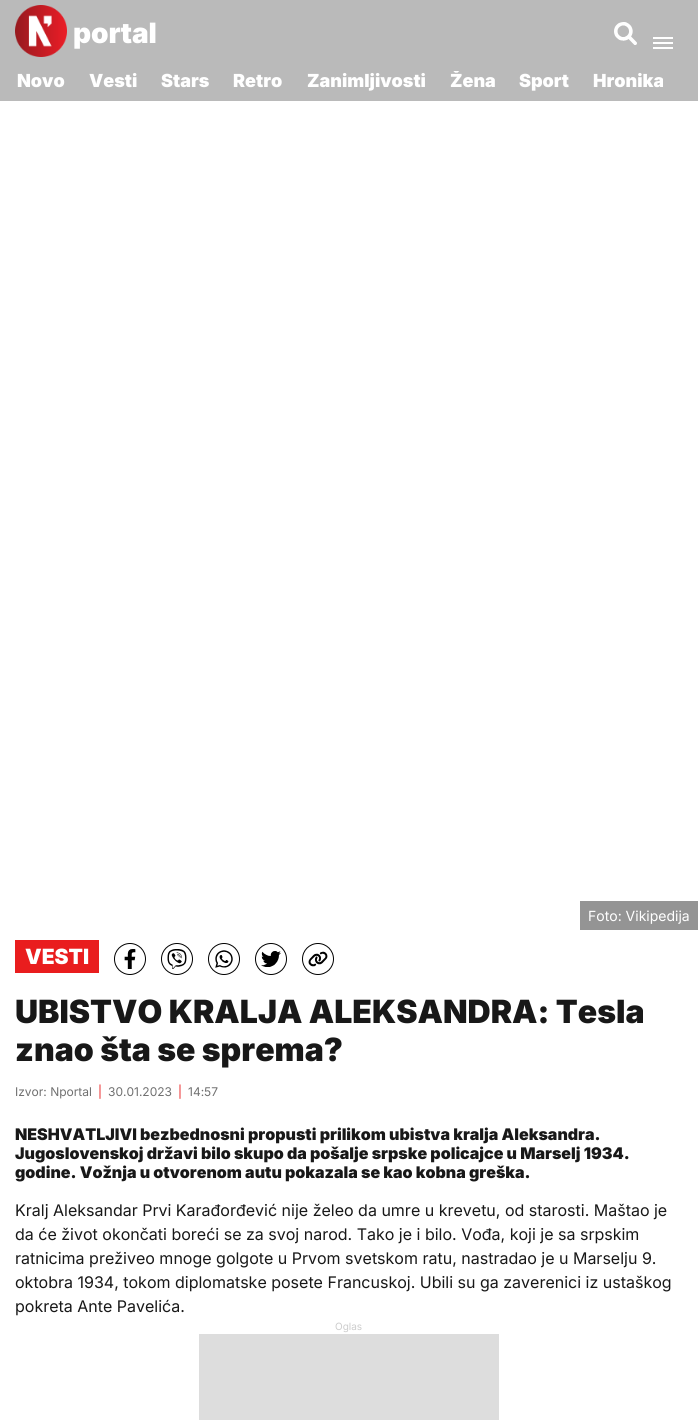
import math
import cairo

surface = cairo.ImageSurface(cairo.FORMAT_RGB24, 698, 1420)
ctx = cairo.Context(surface)
options = cairo.FontOptions()
options.set_hint_metrics(cairo.HINT_METRICS_OFF)
options.set_hint_style(cairo.HINT_STYLE_NONE)
ctx.set_font_options(options)
ctx.set_miter_limit(4)


def picture(path, x, y, w, h):
    ctx.save()
    ctx.set_source_surface(cairo.ImageSurface.create_from_png(path), x, y)
    ctx.rectangle(x, y, w, h)
    ctx.fill()
    ctx.restore()


ctx.set_source_rgb(1, 1, 1)
ctx.paint()
ctx.set_source_rgb(0.729, 0.729, 0.729)
ctx.rectangle(0, 0, 698, 101)
ctx.fill()
picture("img1.png", 15, 5, 52, 52)
ctx.select_font_face("Inter Black")
ctx.set_font_size(28)
ctx.set_source_rgb(1, 1, 1)
ctx.move_to(73, 43)
ctx.show_text("portal")
picture("img2.png", 614, 22, 23, 23)
ctx.rectangle(653, 37, 20, 2)
ctx.fill()
ctx.rectangle(653, 42, 20, 2)
ctx.fill()
ctx.rectangle(653, 47, 20, 2)
ctx.fill()
ctx.set_font_size(18)
ctx.move_to(17, 87)
ctx.show_text("Novo")
ctx.move_to(89, 87)
ctx.show_text("Vesti")
ctx.move_to(161, 87)
ctx.show_text("Stars")
ctx.move_to(233, 87)
ctx.show_text("Retro")
ctx.move_to(307, 87)
ctx.show_text("Zanimljivosti")
ctx.save()
ctx.rectangle(15, 71, 668, 20)
ctx.clip()
ctx.move_to(450, 87)
ctx.show_text("Žena")
ctx.restore()
ctx.move_to(519, 87)
ctx.show_text("Sport")
ctx.move_to(593, 87)
ctx.show_text("Hronika")
ctx.set_source_rgb(0.58, 0.58, 0.58)
ctx.rectangle(580, 901, 118, 29)
ctx.fill()
ctx.select_font_face("Inter")
ctx.set_font_size(14)
ctx.set_source_rgb(1, 1, 1)
ctx.move_to(588, 921)
ctx.show_text("Foto: Vikipedija")
ctx.set_source_rgb(0.914, 0.114, 0.118)
ctx.rectangle(15, 940, 84, 33)
ctx.fill()
ctx.select_font_face("Inter Black")
ctx.set_font_size(21)
ctx.set_source_rgb(1, 1, 1)
ctx.move_to(25, 964)
ctx.show_text("VESTI")
ctx.new_path()
ctx.arc(130, 959, 15.5, 0, 2 * math.pi)
ctx.set_source_rgb(0, 0, 0)
ctx.set_line_width(1)
ctx.stroke()
picture("img3.png", 124, 949, 12, 20)
ctx.arc(177, 959, 15.5, 0, 2 * math.pi)
ctx.stroke()
picture("img4.png", 167, 949, 20, 20)
ctx.arc(224, 959, 15.5, 0, 2 * math.pi)
ctx.stroke()
picture("img5.png", 215, 950, 18, 18)
ctx.arc(271, 959, 15.5, 0, 2 * math.pi)
ctx.stroke()
picture("img6.png", 261, 951, 20, 16)
ctx.arc(318, 959, 15.5, 0, 2 * math.pi)
ctx.stroke()
picture("img7.png", 308, 951, 20, 16)
ctx.set_font_size(32)
ctx.set_source_rgb(0.094, 0.094, 0.094)
ctx.move_to(15, 1023)
ctx.show_text("UBISTVO KRALJA ALEKSANDRA: Tesla")
ctx.move_to(15, 1061)
ctx.show_text("znao šta se sprema?")
ctx.select_font_face("Inter")
ctx.set_font_size(12)
ctx.set_source_rgb(0.439, 0.439, 0.439)
ctx.move_to(15, 1096)
ctx.show_text("Izvor: Nportal")
ctx.set_source_rgb(0.914, 0.114, 0.118)
ctx.move_to(98, 1096)
ctx.show_text("|")
ctx.set_source_rgb(0.439, 0.439, 0.439)
ctx.move_to(108, 1096)
ctx.show_text("30.01.2023")
ctx.set_source_rgb(0.914, 0.114, 0.118)
ctx.move_to(178, 1096)
ctx.show_text("|")
ctx.set_source_rgb(0.439, 0.439, 0.439)
ctx.move_to(188, 1096)
ctx.show_text("14:57")
ctx.select_font_face("Inter Black")
ctx.set_font_size(16)
ctx.set_source_rgb(0.094, 0.094, 0.094)
ctx.move_to(15, 1140)
ctx.show_text("NESHVATLJIVI bezbednosni propusti prilikom ubistva kralja Aleksandra.")
ctx.move_to(15, 1159)
ctx.show_text("Jugoslovenskoj državi bilo skupo da pošalje srpske policajce u Marselj 1934.")
ctx.move_to(15, 1178)
ctx.show_text("godine. Vožnja u otvorenom autu pokazala se kao kobna greška.")
ctx.select_font_face("Inter")
ctx.move_to(15, 1216)
ctx.show_text("Kralj Aleksandar Prvi Karađorđević nije želeo da umre u krevetu, od starosti. Maštao je")
ctx.move_to(15, 1240)
ctx.show_text("da će život okončati boreći se za svoj narod. Tako je i bilo. Vođa, koji je sa srpskim")
ctx.move_to(15, 1264)
ctx.show_text("ratnicima preživeo mnoge golgote u Prvom svetskom ratu, nastradao je u Marselju 9.")
ctx.move_to(15, 1288)
ctx.show_text("oktobra 1934, tokom diplomatske posete Francuskoj. Ubili su ga zaverenici iz ustaškog")
ctx.move_to(15, 1312)
ctx.show_text("pokreta Ante Pavelića.")
ctx.set_font_size(10)
ctx.set_source_rgb(0.8, 0.8, 0.8)
ctx.move_to(335, 1330)
ctx.show_text("Oglas")
ctx.set_source_rgb(0.867, 0.867, 0.867)
ctx.rectangle(199, 1334, 300, 86)
ctx.fill()
surface.write_to_png("page.png")
